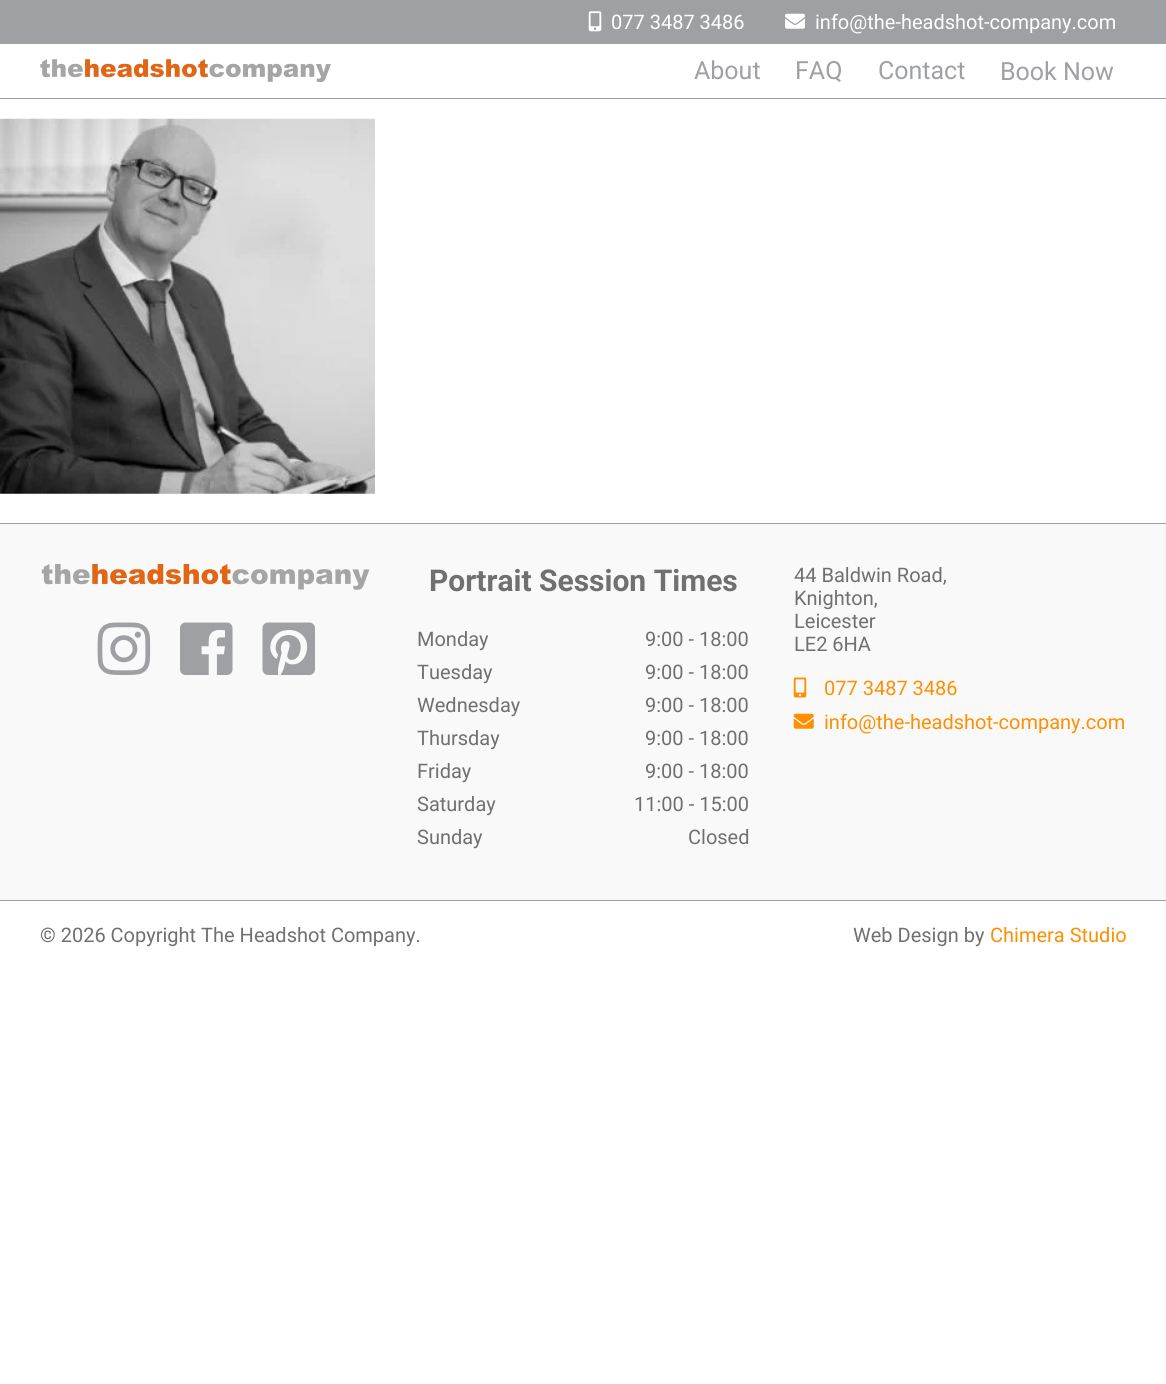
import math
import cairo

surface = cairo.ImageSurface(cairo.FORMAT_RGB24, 1166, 1384)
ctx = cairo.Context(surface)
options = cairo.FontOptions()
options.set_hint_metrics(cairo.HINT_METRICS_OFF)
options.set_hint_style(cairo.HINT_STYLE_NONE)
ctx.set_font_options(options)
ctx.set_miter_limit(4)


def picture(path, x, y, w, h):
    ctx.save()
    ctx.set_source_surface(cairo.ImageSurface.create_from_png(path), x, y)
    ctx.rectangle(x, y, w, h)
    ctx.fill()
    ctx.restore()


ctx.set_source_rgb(1, 1, 1)
ctx.paint()
ctx.set_source_rgb(0.62, 0.627, 0.639)
ctx.rectangle(0, 98, 1166, 1)
ctx.fill()
ctx.rectangle(0, 0, 1166, 44)
ctx.fill()
picture("img1.png", 588, 11, 14, 21)
ctx.select_font_face("Roboto")
ctx.set_font_size(20)
ctx.set_source_rgb(1, 1, 1)
ctx.move_to(611, 29)
ctx.show_text("077 3487 3486")
picture("img2.png", 785, 13, 20, 16)
ctx.move_to(815, 29)
ctx.show_text("info@the-headshot-company.com")
picture("img3.png", 40, 59, 291, 24)
ctx.set_font_size(25)
ctx.set_source_rgb(0.62, 0.627, 0.639)
ctx.move_to(694, 79)
ctx.show_text("About")
ctx.move_to(795, 79)
ctx.show_text("FAQ")
ctx.move_to(878, 79)
ctx.show_text("Contact")
ctx.move_to(1000, 80)
ctx.show_text("Book Now")
picture("img4.png", 0, 118, 375, 376)
ctx.set_source_rgb(0.976, 0.976, 0.976)
ctx.rectangle(0, 524, 1166, 376)
ctx.fill()
ctx.set_source_rgb(0.62, 0.627, 0.639)
ctx.rectangle(0, 523, 1166, 1)
ctx.fill()
ctx.rectangle(0, 900, 1166, 1)
ctx.fill()
picture("img5.png", 41, 564, 329, 26)
picture("img6.png", 97, 622, 54, 53)
picture("img7.png", 180, 622, 53, 53)
picture("img8.png", 262, 622, 53, 53)
ctx.select_font_face("Roboto", cairo.FONT_SLANT_NORMAL, cairo.FONT_WEIGHT_BOLD)
ctx.set_font_size(30)
ctx.set_source_rgb(0.439, 0.439, 0.439)
ctx.move_to(429, 591)
ctx.show_text("Portrait Session Times")
ctx.select_font_face("Roboto")
ctx.set_font_size(20)
ctx.move_to(417, 646)
ctx.show_text("Monday")
ctx.move_to(645, 646)
ctx.show_text("9:00 - 18:00")
ctx.move_to(417, 679)
ctx.show_text("Tuesday")
ctx.move_to(645, 679)
ctx.show_text("9:00 - 18:00")
ctx.move_to(417, 712)
ctx.show_text("Wednesday")
ctx.move_to(645, 712)
ctx.show_text("9:00 - 18:00")
ctx.move_to(417, 745)
ctx.show_text("Thursday")
ctx.move_to(645, 745)
ctx.show_text("9:00 - 18:00")
ctx.move_to(417, 778)
ctx.show_text("Friday")
ctx.move_to(645, 778)
ctx.show_text("9:00 - 18:00")
ctx.move_to(417, 811)
ctx.show_text("Saturday")
ctx.move_to(634, 811)
ctx.show_text("11:00 - 15:00")
ctx.move_to(417, 844)
ctx.show_text("Sunday")
ctx.move_to(688, 844)
ctx.show_text("Closed")
ctx.move_to(794, 582)
ctx.show_text("44 Baldwin Road,")
ctx.move_to(794, 605)
ctx.show_text("Knighton,")
ctx.move_to(794, 628)
ctx.show_text("Leicester")
ctx.move_to(794, 651)
ctx.show_text("LE2 6HA")
picture("img9.png", 793, 677, 14, 21)
ctx.set_source_rgb(1, 0.561, 0)
ctx.move_to(824, 695)
ctx.show_text("077 3487 3486")
picture("img10.png", 793, 713, 21, 16)
ctx.move_to(824, 729)
ctx.show_text("info@the-headshot-company.com")
ctx.set_source_rgb(0.439, 0.439, 0.439)
ctx.move_to(40, 942)
ctx.show_text("© 2026 Copyright The Headshot Company.")
ctx.move_to(853, 942)
ctx.show_text("Web Design by")
ctx.set_source_rgb(1, 0.561, 0)
ctx.move_to(990, 942)
ctx.show_text("Chimera Studio")
surface.write_to_png("page.png")
